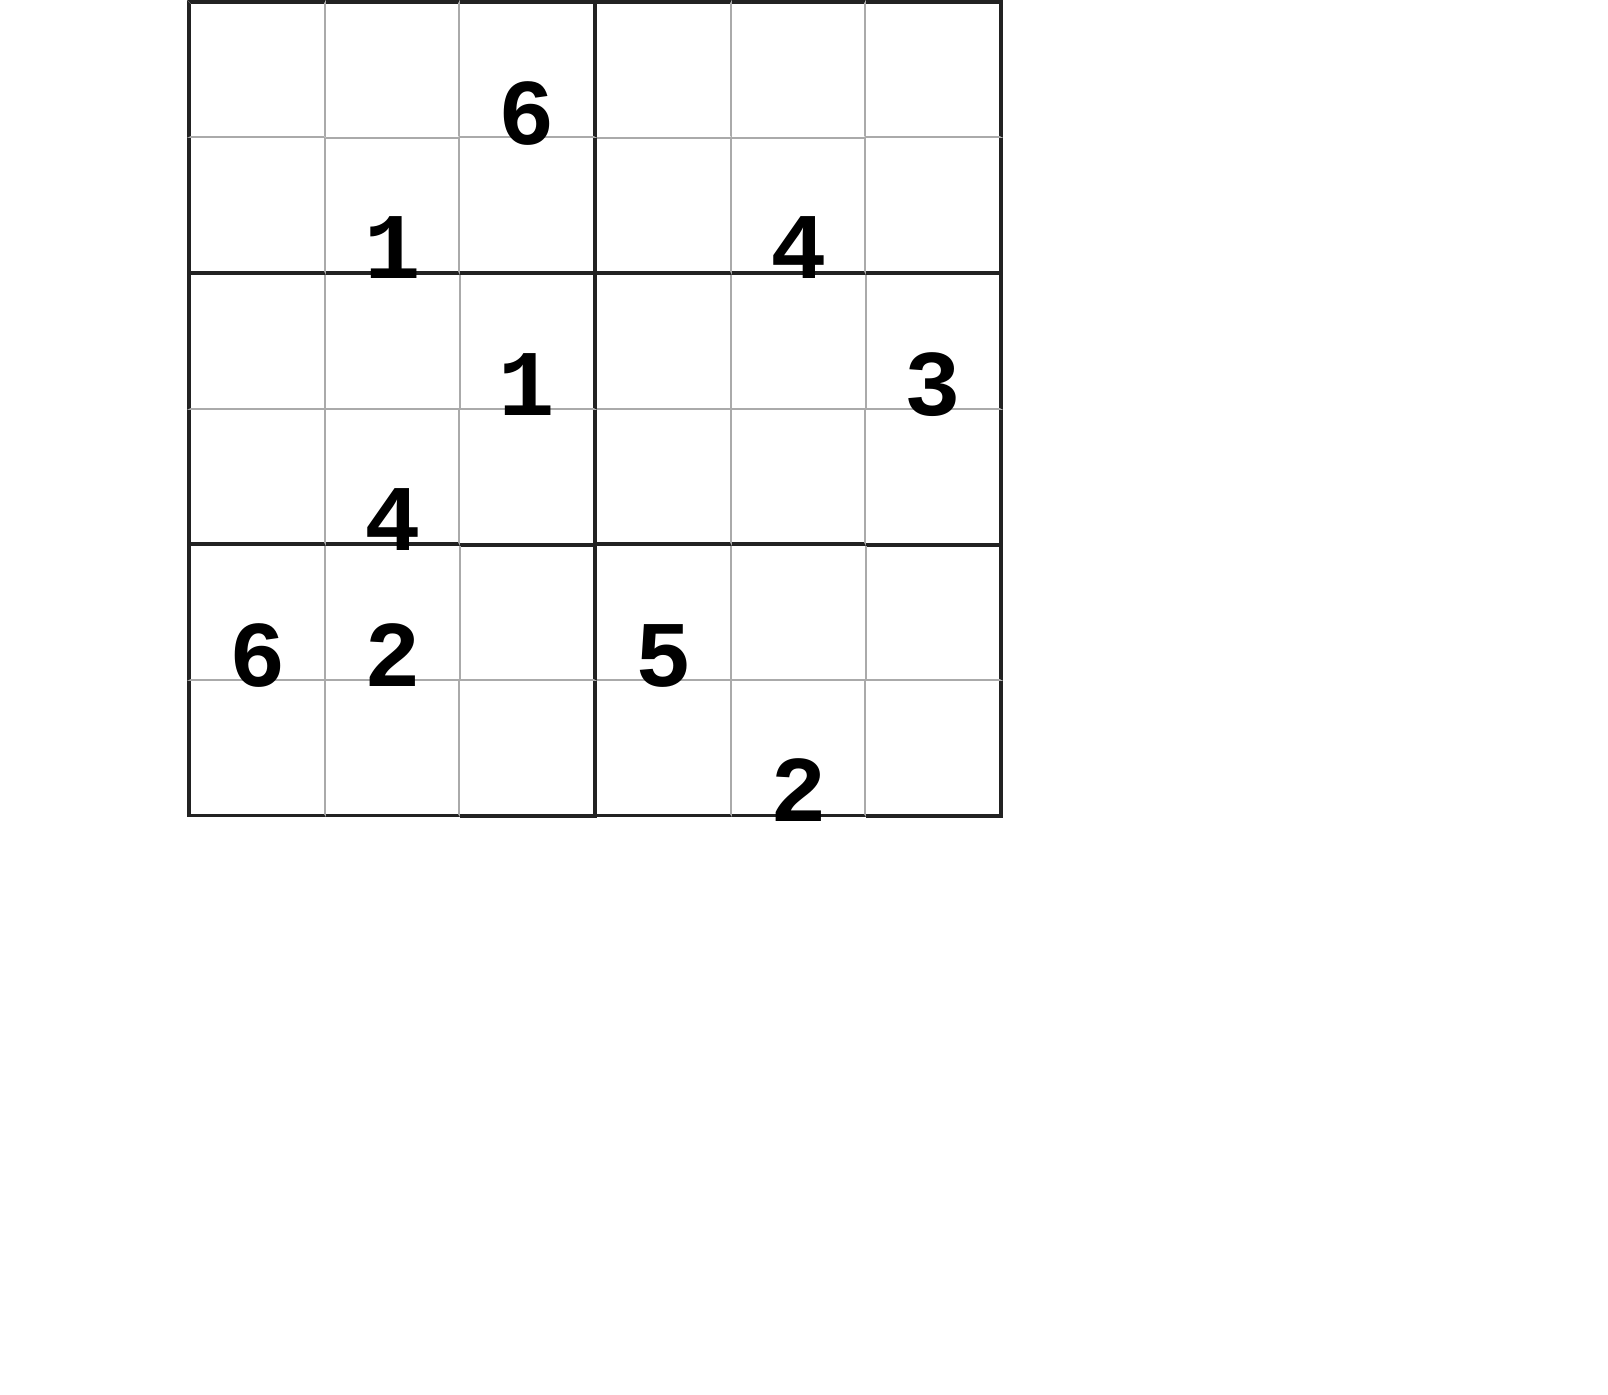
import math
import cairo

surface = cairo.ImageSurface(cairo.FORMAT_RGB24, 1608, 1395)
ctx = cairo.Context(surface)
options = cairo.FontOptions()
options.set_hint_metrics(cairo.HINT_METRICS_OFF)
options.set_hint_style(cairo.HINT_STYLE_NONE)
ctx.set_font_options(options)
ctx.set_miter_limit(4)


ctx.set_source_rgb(1, 1, 1)
ctx.paint()
ctx.set_source_rgb(0.133, 0.133, 0.133)
ctx.new_path()
ctx.move_to(187, 0)
ctx.line_to(326, 0)
ctx.line_to(324, 4)
ctx.line_to(191, 4)
ctx.close_path()
ctx.fill()
ctx.set_source_rgb(0.667, 0.667, 0.667)
ctx.new_path()
ctx.move_to(326, 0)
ctx.line_to(326, 138)
ctx.line_to(324, 136)
ctx.line_to(324, 4)
ctx.close_path()
ctx.fill()
ctx.new_path()
ctx.move_to(326, 138)
ctx.line_to(187, 138)
ctx.line_to(191, 136)
ctx.line_to(324, 136)
ctx.close_path()
ctx.fill()
ctx.set_source_rgb(0.133, 0.133, 0.133)
ctx.new_path()
ctx.move_to(187, 138)
ctx.line_to(187, 0)
ctx.line_to(191, 4)
ctx.line_to(191, 136)
ctx.close_path()
ctx.fill()
ctx.new_path()
ctx.move_to(326, 0)
ctx.line_to(460, 0)
ctx.line_to(458, 4)
ctx.line_to(326, 4)
ctx.close_path()
ctx.fill()
ctx.set_source_rgb(0.667, 0.667, 0.667)
ctx.new_path()
ctx.move_to(460, 0)
ctx.line_to(460, 138)
ctx.line_to(458, 136)
ctx.line_to(458, 4)
ctx.close_path()
ctx.fill()
ctx.rectangle(326, 137, 134, 2)
ctx.fill()
ctx.set_source_rgb(0.133, 0.133, 0.133)
ctx.rectangle(460, 0, 137, 4)
ctx.fill()
ctx.new_path()
ctx.move_to(597, 0)
ctx.line_to(597, 138)
ctx.line_to(593, 136)
ctx.line_to(593, 4)
ctx.close_path()
ctx.fill()
ctx.set_source_rgb(0.667, 0.667, 0.667)
ctx.new_path()
ctx.move_to(597, 138)
ctx.line_to(460, 138)
ctx.line_to(460, 136)
ctx.line_to(593, 136)
ctx.close_path()
ctx.fill()
ctx.select_font_face("Liberation Mono", cairo.FONT_SLANT_NORMAL, cairo.FONT_WEIGHT_BOLD)
ctx.set_font_size(94)
ctx.set_source_rgb(0, 0, 0)
ctx.move_to(498, 144)
ctx.show_text("6")
ctx.set_source_rgb(0.133, 0.133, 0.133)
ctx.new_path()
ctx.move_to(597, 0)
ctx.line_to(732, 0)
ctx.line_to(730, 4)
ctx.line_to(597, 4)
ctx.close_path()
ctx.fill()
ctx.set_source_rgb(0.667, 0.667, 0.667)
ctx.new_path()
ctx.move_to(732, 0)
ctx.line_to(732, 138)
ctx.line_to(730, 136)
ctx.line_to(730, 4)
ctx.close_path()
ctx.fill()
ctx.rectangle(597, 137, 135, 2)
ctx.fill()
ctx.set_source_rgb(0.133, 0.133, 0.133)
ctx.new_path()
ctx.move_to(732, 0)
ctx.line_to(866, 0)
ctx.line_to(864, 4)
ctx.line_to(732, 4)
ctx.close_path()
ctx.fill()
ctx.set_source_rgb(0.667, 0.667, 0.667)
ctx.new_path()
ctx.move_to(866, 0)
ctx.line_to(866, 138)
ctx.line_to(864, 136)
ctx.line_to(864, 4)
ctx.close_path()
ctx.fill()
ctx.rectangle(732, 137, 134, 2)
ctx.fill()
ctx.set_source_rgb(0.133, 0.133, 0.133)
ctx.rectangle(866, 0, 137, 4)
ctx.fill()
ctx.new_path()
ctx.move_to(1003, 0)
ctx.line_to(1003, 138)
ctx.line_to(999, 136)
ctx.line_to(999, 4)
ctx.close_path()
ctx.fill()
ctx.set_source_rgb(0.667, 0.667, 0.667)
ctx.new_path()
ctx.move_to(1003, 138)
ctx.line_to(866, 138)
ctx.line_to(866, 136)
ctx.line_to(999, 136)
ctx.close_path()
ctx.fill()
ctx.new_path()
ctx.move_to(326, 138)
ctx.line_to(326, 275)
ctx.line_to(324, 271)
ctx.line_to(324, 138)
ctx.close_path()
ctx.fill()
ctx.set_source_rgb(0.133, 0.133, 0.133)
ctx.new_path()
ctx.move_to(326, 275)
ctx.line_to(187, 275)
ctx.line_to(191, 271)
ctx.line_to(324, 271)
ctx.close_path()
ctx.fill()
ctx.rectangle(187, 138, 4, 137)
ctx.fill()
ctx.set_source_rgb(0.667, 0.667, 0.667)
ctx.new_path()
ctx.move_to(460, 138)
ctx.line_to(460, 275)
ctx.line_to(458, 271)
ctx.line_to(458, 138)
ctx.close_path()
ctx.fill()
ctx.set_source_rgb(0.133, 0.133, 0.133)
ctx.new_path()
ctx.move_to(460, 275)
ctx.line_to(326, 275)
ctx.line_to(326, 271)
ctx.line_to(458, 271)
ctx.close_path()
ctx.fill()
ctx.set_source_rgb(0, 0, 0)
ctx.move_to(364, 278)
ctx.show_text("1")
ctx.set_source_rgb(0.133, 0.133, 0.133)
ctx.rectangle(593, 138, 4, 137)
ctx.fill()
ctx.rectangle(460, 271, 137, 4)
ctx.fill()
ctx.set_source_rgb(0.667, 0.667, 0.667)
ctx.new_path()
ctx.move_to(732, 138)
ctx.line_to(732, 275)
ctx.line_to(730, 271)
ctx.line_to(730, 138)
ctx.close_path()
ctx.fill()
ctx.set_source_rgb(0.133, 0.133, 0.133)
ctx.new_path()
ctx.move_to(732, 275)
ctx.line_to(597, 275)
ctx.line_to(597, 271)
ctx.line_to(730, 271)
ctx.close_path()
ctx.fill()
ctx.set_source_rgb(0.667, 0.667, 0.667)
ctx.new_path()
ctx.move_to(866, 138)
ctx.line_to(866, 275)
ctx.line_to(864, 271)
ctx.line_to(864, 138)
ctx.close_path()
ctx.fill()
ctx.set_source_rgb(0.133, 0.133, 0.133)
ctx.new_path()
ctx.move_to(866, 275)
ctx.line_to(732, 275)
ctx.line_to(732, 271)
ctx.line_to(864, 271)
ctx.close_path()
ctx.fill()
ctx.set_source_rgb(0, 0, 0)
ctx.move_to(770, 278)
ctx.show_text("4")
ctx.set_source_rgb(0.133, 0.133, 0.133)
ctx.rectangle(999, 138, 4, 137)
ctx.fill()
ctx.rectangle(866, 271, 137, 4)
ctx.fill()
ctx.set_source_rgb(0.667, 0.667, 0.667)
ctx.rectangle(324, 275, 2, 135)
ctx.fill()
ctx.new_path()
ctx.move_to(326, 410)
ctx.line_to(187, 410)
ctx.line_to(191, 408)
ctx.line_to(324, 408)
ctx.close_path()
ctx.fill()
ctx.set_source_rgb(0.133, 0.133, 0.133)
ctx.new_path()
ctx.move_to(187, 410)
ctx.line_to(187, 275)
ctx.line_to(191, 275)
ctx.line_to(191, 408)
ctx.close_path()
ctx.fill()
ctx.set_source_rgb(0.667, 0.667, 0.667)
ctx.rectangle(459, 275, 2, 135)
ctx.fill()
ctx.rectangle(326, 408, 134, 2)
ctx.fill()
ctx.set_source_rgb(0.133, 0.133, 0.133)
ctx.new_path()
ctx.move_to(597, 275)
ctx.line_to(597, 410)
ctx.line_to(593, 408)
ctx.line_to(593, 275)
ctx.close_path()
ctx.fill()
ctx.set_source_rgb(0.667, 0.667, 0.667)
ctx.new_path()
ctx.move_to(597, 410)
ctx.line_to(460, 410)
ctx.line_to(460, 408)
ctx.line_to(593, 408)
ctx.close_path()
ctx.fill()
ctx.set_source_rgb(0, 0, 0)
ctx.move_to(498, 415)
ctx.show_text("1")
ctx.set_source_rgb(0.667, 0.667, 0.667)
ctx.rectangle(730, 275, 2, 135)
ctx.fill()
ctx.rectangle(597, 408, 135, 2)
ctx.fill()
ctx.rectangle(865, 275, 2, 135)
ctx.fill()
ctx.rectangle(732, 408, 134, 2)
ctx.fill()
ctx.set_source_rgb(0.133, 0.133, 0.133)
ctx.new_path()
ctx.move_to(1003, 275)
ctx.line_to(1003, 410)
ctx.line_to(999, 408)
ctx.line_to(999, 275)
ctx.close_path()
ctx.fill()
ctx.set_source_rgb(0.667, 0.667, 0.667)
ctx.new_path()
ctx.move_to(1003, 410)
ctx.line_to(866, 410)
ctx.line_to(866, 408)
ctx.line_to(999, 408)
ctx.close_path()
ctx.fill()
ctx.set_source_rgb(0, 0, 0)
ctx.move_to(904, 415)
ctx.show_text("3")
ctx.set_source_rgb(0.667, 0.667, 0.667)
ctx.new_path()
ctx.move_to(326, 410)
ctx.line_to(326, 546)
ctx.line_to(324, 542)
ctx.line_to(324, 410)
ctx.close_path()
ctx.fill()
ctx.set_source_rgb(0.133, 0.133, 0.133)
ctx.new_path()
ctx.move_to(326, 546)
ctx.line_to(187, 546)
ctx.line_to(191, 542)
ctx.line_to(324, 542)
ctx.close_path()
ctx.fill()
ctx.rectangle(187, 410, 4, 136)
ctx.fill()
ctx.set_source_rgb(0.667, 0.667, 0.667)
ctx.new_path()
ctx.move_to(460, 410)
ctx.line_to(460, 546)
ctx.line_to(458, 542)
ctx.line_to(458, 410)
ctx.close_path()
ctx.fill()
ctx.set_source_rgb(0.133, 0.133, 0.133)
ctx.new_path()
ctx.move_to(460, 546)
ctx.line_to(326, 546)
ctx.line_to(326, 542)
ctx.line_to(458, 542)
ctx.close_path()
ctx.fill()
ctx.set_source_rgb(0, 0, 0)
ctx.move_to(364, 550)
ctx.show_text("4")
ctx.set_source_rgb(0.133, 0.133, 0.133)
ctx.rectangle(593, 410, 4, 136)
ctx.fill()
ctx.rectangle(460, 543, 137, 4)
ctx.fill()
ctx.set_source_rgb(0.667, 0.667, 0.667)
ctx.new_path()
ctx.move_to(732, 410)
ctx.line_to(732, 546)
ctx.line_to(730, 542)
ctx.line_to(730, 410)
ctx.close_path()
ctx.fill()
ctx.set_source_rgb(0.133, 0.133, 0.133)
ctx.new_path()
ctx.move_to(732, 546)
ctx.line_to(597, 546)
ctx.line_to(597, 542)
ctx.line_to(730, 542)
ctx.close_path()
ctx.fill()
ctx.set_source_rgb(0.667, 0.667, 0.667)
ctx.new_path()
ctx.move_to(866, 410)
ctx.line_to(866, 546)
ctx.line_to(864, 542)
ctx.line_to(864, 410)
ctx.close_path()
ctx.fill()
ctx.set_source_rgb(0.133, 0.133, 0.133)
ctx.new_path()
ctx.move_to(866, 546)
ctx.line_to(732, 546)
ctx.line_to(732, 542)
ctx.line_to(864, 542)
ctx.close_path()
ctx.fill()
ctx.rectangle(999, 410, 4, 136)
ctx.fill()
ctx.rectangle(866, 543, 137, 4)
ctx.fill()
ctx.set_source_rgb(0.667, 0.667, 0.667)
ctx.rectangle(324, 546, 2, 135)
ctx.fill()
ctx.new_path()
ctx.move_to(326, 681)
ctx.line_to(187, 681)
ctx.line_to(191, 679)
ctx.line_to(324, 679)
ctx.close_path()
ctx.fill()
ctx.set_source_rgb(0.133, 0.133, 0.133)
ctx.new_path()
ctx.move_to(187, 681)
ctx.line_to(187, 546)
ctx.line_to(191, 546)
ctx.line_to(191, 679)
ctx.close_path()
ctx.fill()
ctx.set_source_rgb(0, 0, 0)
ctx.move_to(229, 686)
ctx.show_text("6")
ctx.set_source_rgb(0.667, 0.667, 0.667)
ctx.rectangle(459, 546, 2, 135)
ctx.fill()
ctx.rectangle(326, 679, 134, 2)
ctx.fill()
ctx.set_source_rgb(0, 0, 0)
ctx.move_to(364, 686)
ctx.show_text("2")
ctx.set_source_rgb(0.133, 0.133, 0.133)
ctx.new_path()
ctx.move_to(597, 546)
ctx.line_to(597, 681)
ctx.line_to(593, 679)
ctx.line_to(593, 546)
ctx.close_path()
ctx.fill()
ctx.set_source_rgb(0.667, 0.667, 0.667)
ctx.new_path()
ctx.move_to(597, 681)
ctx.line_to(460, 681)
ctx.line_to(460, 679)
ctx.line_to(593, 679)
ctx.close_path()
ctx.fill()
ctx.rectangle(730, 546, 2, 135)
ctx.fill()
ctx.rectangle(597, 679, 135, 2)
ctx.fill()
ctx.set_source_rgb(0, 0, 0)
ctx.move_to(635, 686)
ctx.show_text("5")
ctx.set_source_rgb(0.667, 0.667, 0.667)
ctx.rectangle(865, 546, 2, 135)
ctx.fill()
ctx.rectangle(732, 679, 134, 2)
ctx.fill()
ctx.set_source_rgb(0.133, 0.133, 0.133)
ctx.new_path()
ctx.move_to(1003, 546)
ctx.line_to(1003, 681)
ctx.line_to(999, 679)
ctx.line_to(999, 546)
ctx.close_path()
ctx.fill()
ctx.set_source_rgb(0.667, 0.667, 0.667)
ctx.new_path()
ctx.move_to(1003, 681)
ctx.line_to(866, 681)
ctx.line_to(866, 679)
ctx.line_to(999, 679)
ctx.close_path()
ctx.fill()
ctx.new_path()
ctx.move_to(326, 681)
ctx.line_to(326, 817)
ctx.line_to(324, 814)
ctx.line_to(324, 681)
ctx.close_path()
ctx.fill()
ctx.set_source_rgb(0.133, 0.133, 0.133)
ctx.new_path()
ctx.move_to(326, 817)
ctx.line_to(187, 817)
ctx.line_to(191, 814)
ctx.line_to(324, 814)
ctx.close_path()
ctx.fill()
ctx.rectangle(187, 681, 4, 136)
ctx.fill()
ctx.set_source_rgb(0.667, 0.667, 0.667)
ctx.new_path()
ctx.move_to(460, 681)
ctx.line_to(460, 817)
ctx.line_to(458, 814)
ctx.line_to(458, 681)
ctx.close_path()
ctx.fill()
ctx.set_source_rgb(0.133, 0.133, 0.133)
ctx.new_path()
ctx.move_to(460, 817)
ctx.line_to(326, 817)
ctx.line_to(326, 814)
ctx.line_to(458, 814)
ctx.close_path()
ctx.fill()
ctx.rectangle(593, 681, 4, 136)
ctx.fill()
ctx.rectangle(460, 814, 137, 4)
ctx.fill()
ctx.set_source_rgb(0.667, 0.667, 0.667)
ctx.new_path()
ctx.move_to(732, 681)
ctx.line_to(732, 817)
ctx.line_to(730, 814)
ctx.line_to(730, 681)
ctx.close_path()
ctx.fill()
ctx.set_source_rgb(0.133, 0.133, 0.133)
ctx.new_path()
ctx.move_to(732, 817)
ctx.line_to(597, 817)
ctx.line_to(597, 814)
ctx.line_to(730, 814)
ctx.close_path()
ctx.fill()
ctx.set_source_rgb(0.667, 0.667, 0.667)
ctx.new_path()
ctx.move_to(866, 681)
ctx.line_to(866, 817)
ctx.line_to(864, 814)
ctx.line_to(864, 681)
ctx.close_path()
ctx.fill()
ctx.set_source_rgb(0.133, 0.133, 0.133)
ctx.new_path()
ctx.move_to(866, 817)
ctx.line_to(732, 817)
ctx.line_to(732, 814)
ctx.line_to(864, 814)
ctx.close_path()
ctx.fill()
ctx.set_source_rgb(0, 0, 0)
ctx.move_to(770, 821)
ctx.show_text("2")
ctx.set_source_rgb(0.133, 0.133, 0.133)
ctx.rectangle(999, 681, 4, 136)
ctx.fill()
ctx.rectangle(866, 814, 137, 4)
ctx.fill()
surface.write_to_png("page.png")
